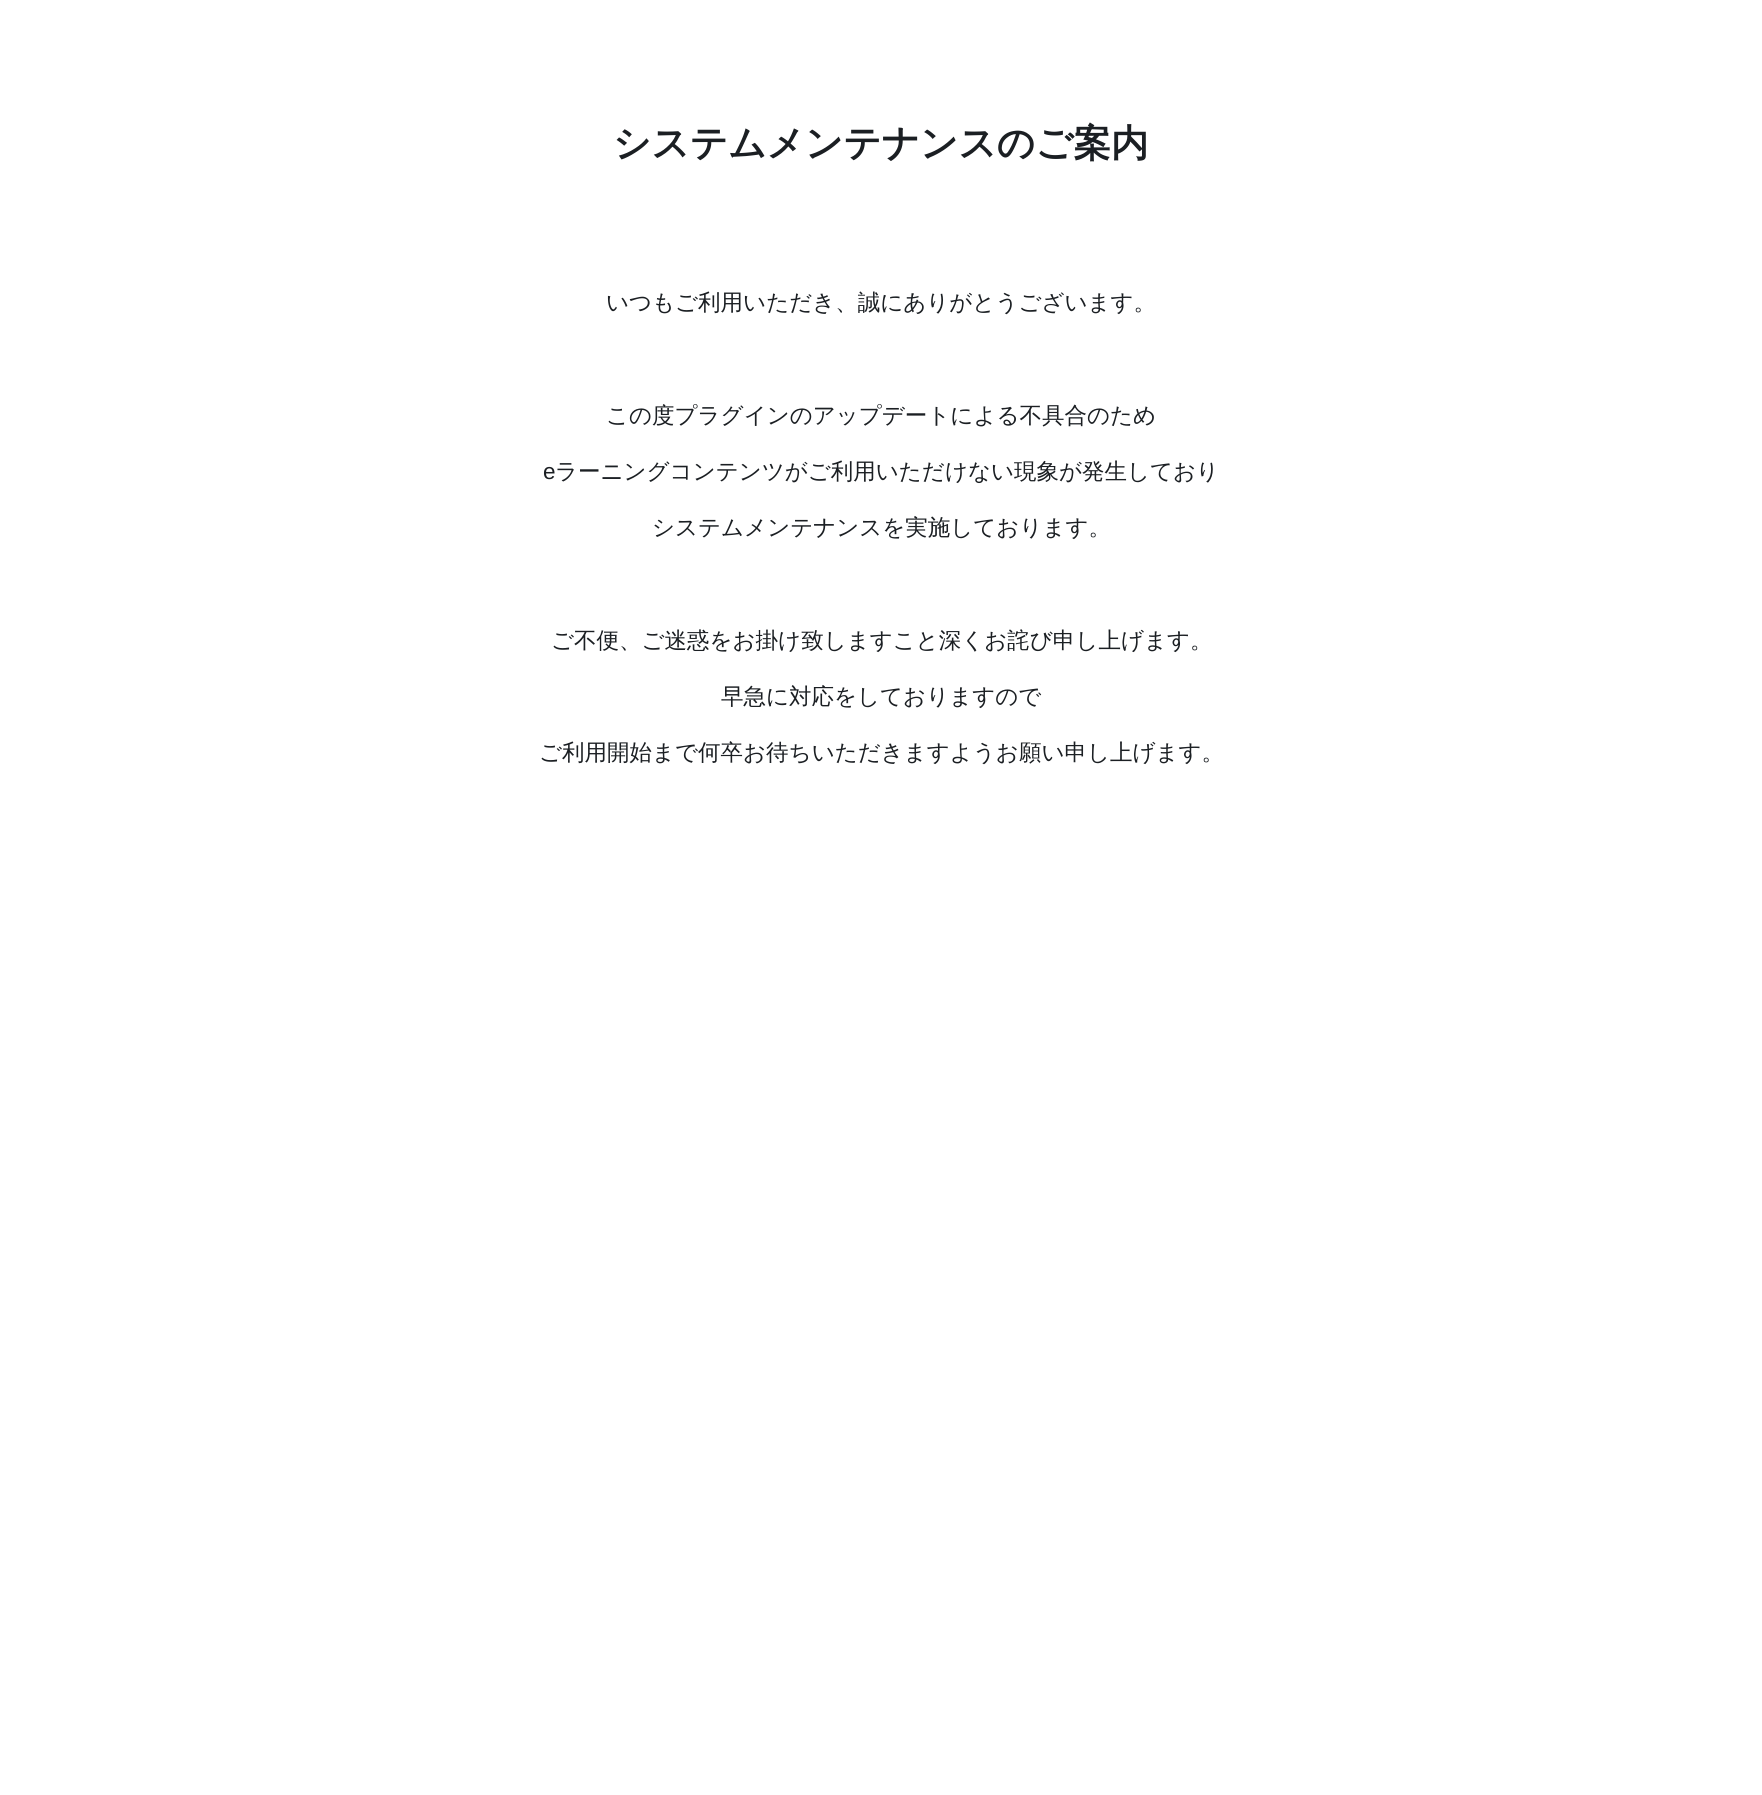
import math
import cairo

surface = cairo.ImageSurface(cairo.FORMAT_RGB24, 1762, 1795)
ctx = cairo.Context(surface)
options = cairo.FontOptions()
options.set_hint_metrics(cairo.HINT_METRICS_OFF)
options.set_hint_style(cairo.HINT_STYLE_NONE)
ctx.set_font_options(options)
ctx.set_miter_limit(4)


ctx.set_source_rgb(1, 1, 1)
ctx.paint()
ctx.select_font_face("WenQuanYi Zen Hei", cairo.FONT_SLANT_NORMAL, cairo.FONT_WEIGHT_BOLD)
ctx.set_font_size(37.5)
ctx.set_source_rgb(0.106, 0.122, 0.137)
ctx.move_to(613, 156)
ctx.show_text("システムメンテナンスのご案内")
ctx.select_font_face("WenQuanYi Zen Hei Medium")
ctx.set_font_size(22.5)
ctx.move_to(606, 310)
ctx.show_text("いつもご利用いただき、誠にありがとうございます。")
ctx.move_to(606, 423)
ctx.show_text("この度プラグインのアップデートによる不具合のため")
ctx.select_font_face("Liberation Sans")
ctx.move_to(543, 479)
ctx.show_text("e")
ctx.select_font_face("WenQuanYi Zen Hei Medium")
ctx.move_to(555, 479)
ctx.show_text("ラーニングコンテンツがご利用いただけない現象が発生しており")
ctx.move_to(652, 535)
ctx.show_text("システムメンテナンスを実施しております。")
ctx.move_to(551, 648)
ctx.show_text("ご不便、ご迷惑をお掛け致しますこと深くお詫び申し上げます。")
ctx.move_to(721, 704)
ctx.show_text("早急に対応をしておりますので")
ctx.move_to(539, 760)
ctx.show_text("ご利用開始まで何卒お待ちいただきますようお願い申し上げます。")
surface.write_to_png("page.png")
